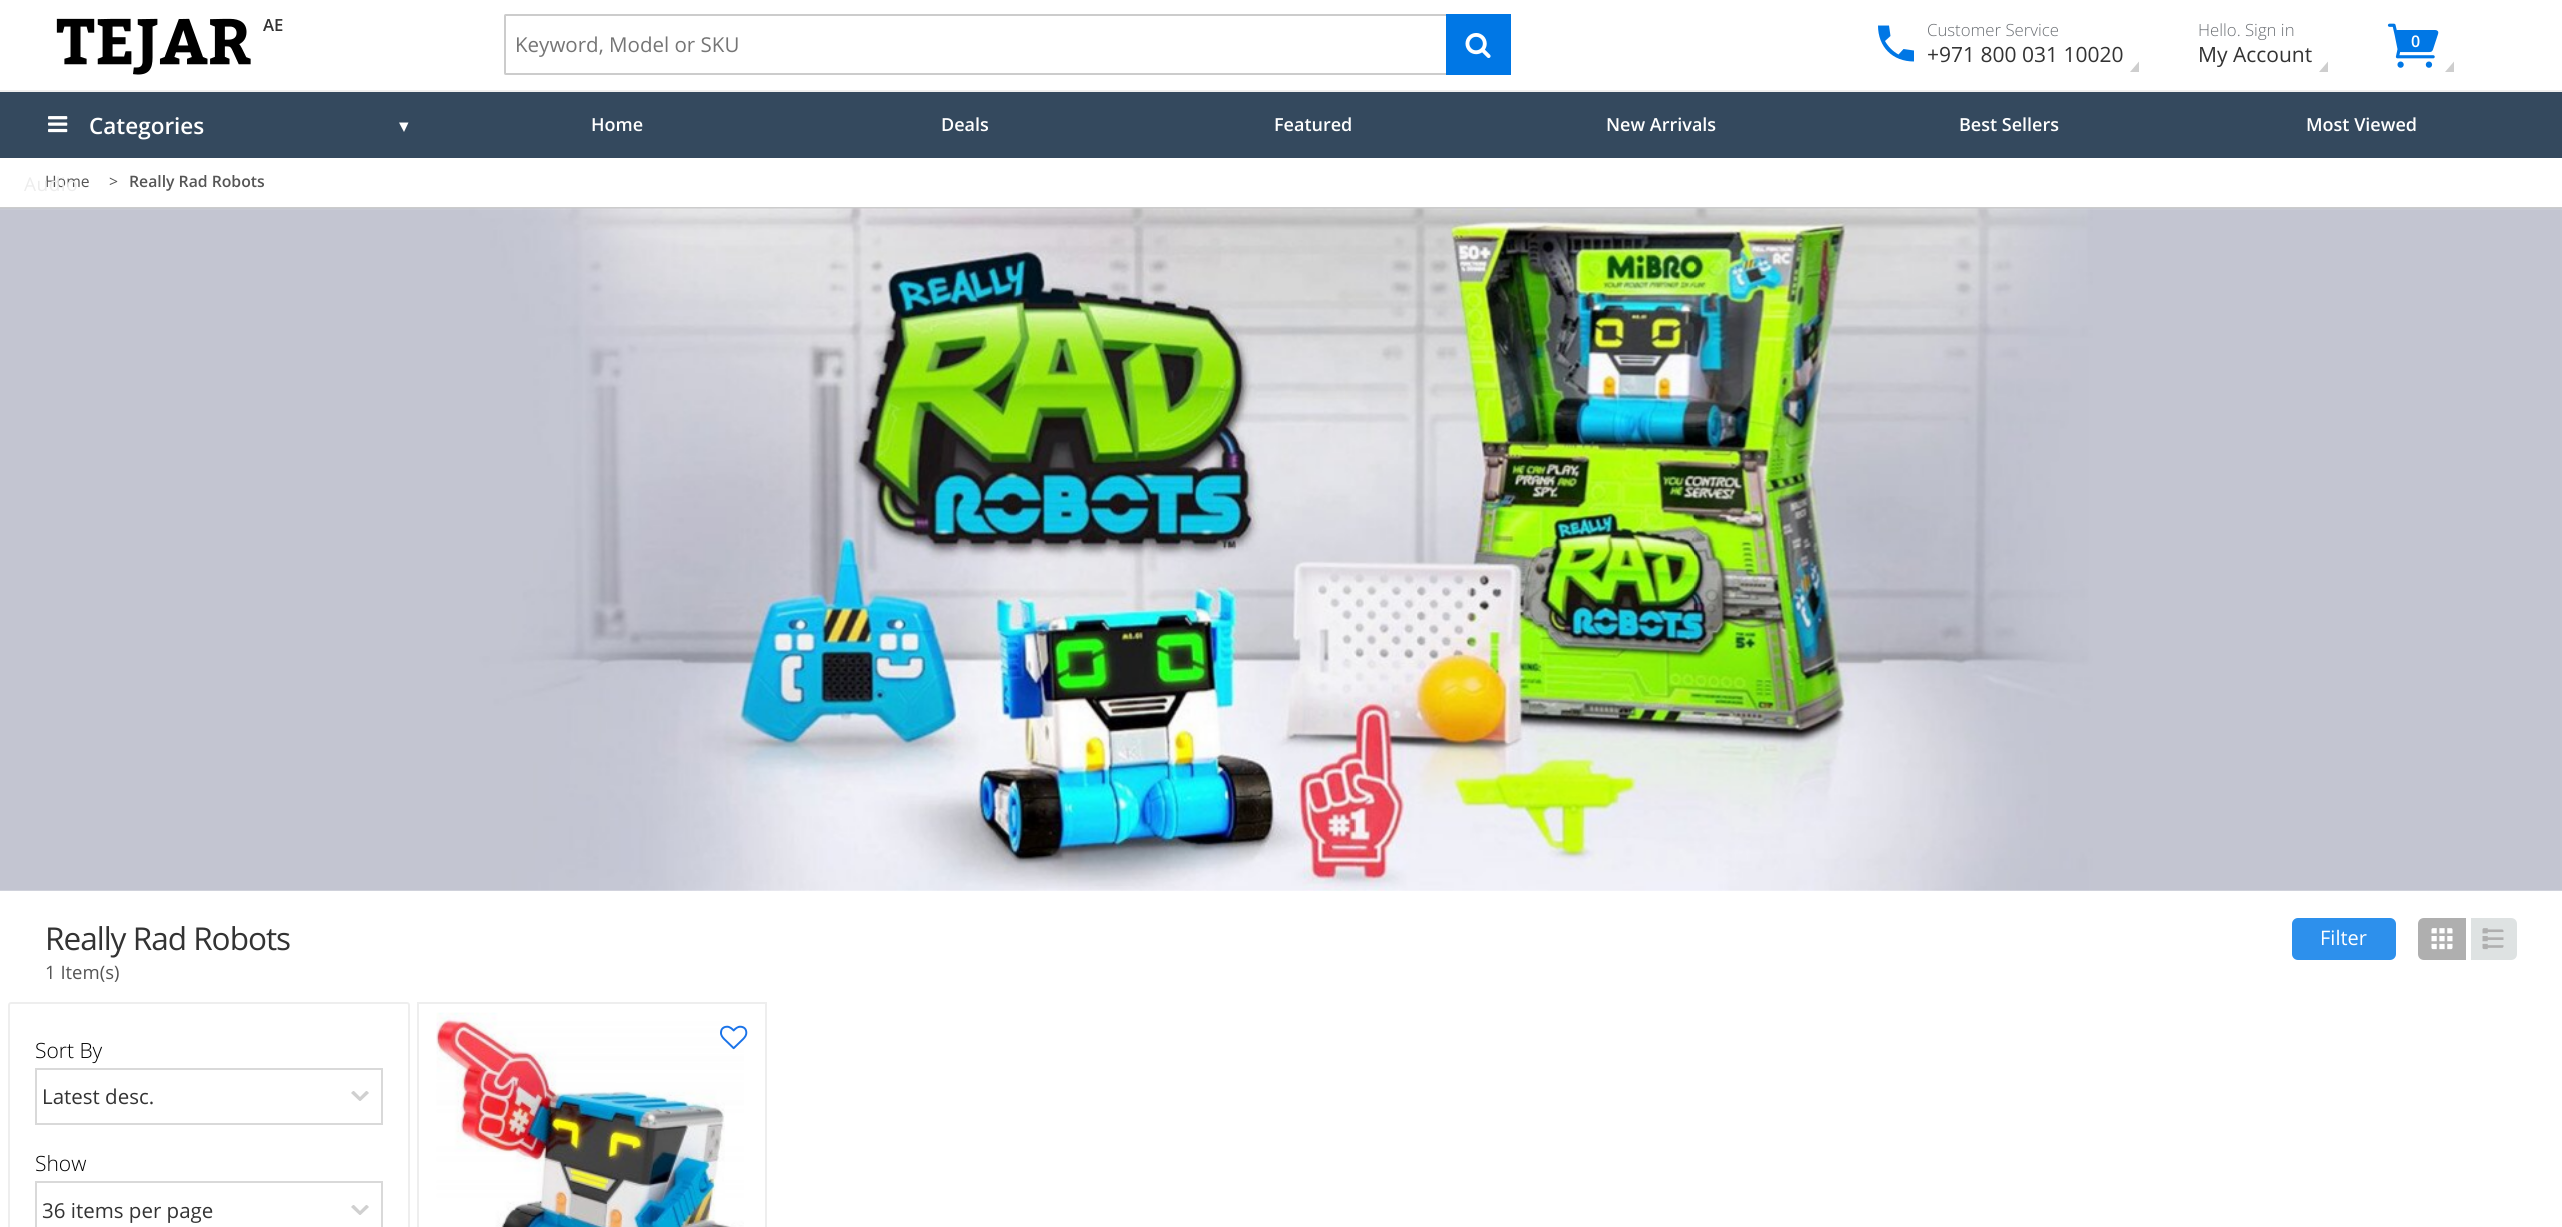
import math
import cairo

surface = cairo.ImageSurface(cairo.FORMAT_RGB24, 2562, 1227)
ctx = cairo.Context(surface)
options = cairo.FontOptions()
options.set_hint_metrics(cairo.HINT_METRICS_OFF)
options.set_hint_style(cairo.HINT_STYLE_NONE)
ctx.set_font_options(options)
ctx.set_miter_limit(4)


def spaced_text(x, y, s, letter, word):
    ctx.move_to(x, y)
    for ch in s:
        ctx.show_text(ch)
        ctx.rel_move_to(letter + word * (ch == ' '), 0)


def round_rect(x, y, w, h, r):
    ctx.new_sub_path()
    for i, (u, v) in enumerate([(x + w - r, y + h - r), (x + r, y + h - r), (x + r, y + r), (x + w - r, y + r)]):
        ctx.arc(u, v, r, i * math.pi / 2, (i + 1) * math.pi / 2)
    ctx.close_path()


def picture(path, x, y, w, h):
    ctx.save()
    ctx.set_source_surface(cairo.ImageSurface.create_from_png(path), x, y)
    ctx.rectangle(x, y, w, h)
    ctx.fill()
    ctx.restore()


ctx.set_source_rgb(1, 1, 1)
ctx.paint()
ctx.set_source_rgb(0.933, 0.933, 0.933)
ctx.rectangle(0, 90, 2562, 2)
ctx.fill()
picture("img1.png", 56, 18, 195, 57)
ctx.select_font_face("Open Sans SemiBold")
ctx.set_font_size(16.75)
ctx.set_source_rgb(0.2, 0.2, 0.2)
ctx.move_to(263, 31)
ctx.show_text("AE")
round_rect(505, 15, 1005, 59, 0.5)
ctx.set_source_rgb(0.8, 0.8, 0.8)
ctx.stroke()
ctx.select_font_face("Open Sans")
ctx.set_font_size(20.5)
ctx.set_source_rgb(0.459, 0.459, 0.459)
ctx.move_to(515, 52)
ctx.show_text("Keyword, Model or SKU")
ctx.set_source_rgb(0, 0.467, 0.898)
ctx.rectangle(1446, 14, 65, 61)
ctx.fill()
picture("img2.png", 1465, 33, 26, 25)
ctx.new_path()
ctx.move_to(1903.5, 49)
ctx.line_to(1898.5, 54.5)
ctx.curve_to(1893, 51.5, 1888, 46.5, 1885, 41)
ctx.line_to(1890.5, 36)
ctx.line_to(1889, 25.5)
ctx.line_to(1878, 25.5)
ctx.curve_to(1878, 47, 1892.5, 61.5, 1914, 61.5)
ctx.line_to(1914, 50.5)
ctx.close_path()
ctx.fill()
ctx.select_font_face("Open Sans Light")
ctx.set_font_size(16.75)
ctx.set_source_rgb(0.416, 0.431, 0.451)
ctx.move_to(1927, 36)
ctx.show_text("Customer Service")
ctx.select_font_face("Open Sans")
ctx.set_font_size(21)
ctx.set_source_rgb(0.2, 0.2, 0.2)
ctx.move_to(1927, 62)
ctx.show_text("+971 800 031 10020")
ctx.set_source_rgb(0.808, 0.808, 0.808)
ctx.new_path()
ctx.move_to(2139, 72)
ctx.line_to(2130, 72)
ctx.line_to(2139, 61.5)
ctx.close_path()
ctx.fill()
ctx.select_font_face("Open Sans Light")
ctx.set_font_size(16.75)
ctx.set_source_rgb(0.416, 0.431, 0.451)
ctx.move_to(2198, 36)
ctx.show_text("Hello. Sign in")
ctx.select_font_face("Open Sans")
ctx.set_font_size(21)
ctx.set_source_rgb(0.2, 0.2, 0.2)
ctx.move_to(2198, 62)
ctx.show_text("My Account")
ctx.set_source_rgb(0.808, 0.808, 0.808)
ctx.new_path()
ctx.move_to(2328, 72)
ctx.line_to(2319, 72)
ctx.line_to(2328, 61.5)
ctx.close_path()
ctx.fill()
picture("img3.png", 2387, 23, 52, 45)
ctx.select_font_face("Open Sans SemiBold")
ctx.set_font_size(16)
ctx.set_source_rgb(1, 1, 1)
ctx.move_to(2411, 47)
ctx.show_text("0")
ctx.set_source_rgb(0.808, 0.808, 0.808)
ctx.new_path()
ctx.move_to(2454, 72)
ctx.line_to(2445, 72)
ctx.line_to(2454, 61.5)
ctx.close_path()
ctx.fill()
ctx.set_source_rgb(0.204, 0.286, 0.369)
ctx.rectangle(0, 92, 2562, 66)
ctx.fill()
picture("img4.png", 48, 116, 20, 17)
ctx.set_font_size(22.5)
ctx.set_source_rgb(1, 1, 1)
ctx.move_to(89, 134)
ctx.show_text("Categories")
ctx.new_path()
ctx.move_to(404, 132)
ctx.line_to(399, 122.5)
ctx.line_to(408.5, 122.5)
ctx.close_path()
ctx.fill()
ctx.set_font_size(18)
ctx.move_to(591, 131)
ctx.show_text("Home")
ctx.move_to(941, 131)
ctx.show_text("Deals")
ctx.move_to(1274, 131)
ctx.show_text("Featured")
ctx.move_to(1606, 131)
ctx.show_text("New Arrivals")
ctx.move_to(1959, 131)
ctx.show_text("Best Sellers")
ctx.move_to(2306, 131)
ctx.show_text("Most Viewed")
ctx.select_font_face("Open Sans")
ctx.set_font_size(15.75)
ctx.set_source_rgb(0.333, 0.333, 0.333)
ctx.move_to(45, 187)
ctx.show_text("Home")
ctx.set_font_size(19)
ctx.set_source_rgb(0.929, 0.929, 0.929)
spaced_text(24, 191, "Audio", 0.5, 0)
ctx.set_source_rgb(0.8, 0.8, 0.8)
ctx.rectangle(0, 207, 2562, 2)
ctx.fill()
ctx.set_font_size(15.75)
ctx.set_source_rgb(0.333, 0.333, 0.333)
ctx.move_to(109, 187)
ctx.show_text(">")
ctx.select_font_face("Open Sans SemiBold")
ctx.move_to(129, 187)
ctx.show_text("Really Rad Robots")
picture("img5.png", 0, 208, 2562, 683)
ctx.select_font_face("Open Sans")
ctx.set_font_size(31.5)
ctx.set_source_rgb(0.2, 0.2, 0.2)
spaced_text(45, 950, "Really Rad Robots", -1, 0)
ctx.set_font_size(18.5)
ctx.set_source_rgb(0.333, 0.333, 0.333)
ctx.move_to(45, 979)
ctx.show_text("1 Item(s)")
ctx.set_source_rgb(0.176, 0.565, 0.925)
round_rect(2292, 918, 104, 42, 6)
ctx.fill()
ctx.set_font_size(20)
ctx.set_source_rgb(1, 1, 1)
ctx.move_to(2320, 945)
ctx.show_text("Filter")
ctx.set_source_rgb(0.686, 0.686, 0.686)
ctx.new_path()
ctx.move_to(2424, 918)
ctx.line_to(2466, 918)
ctx.line_to(2466, 960)
ctx.line_to(2424, 960)
ctx.curve_to(2420.5, 960, 2418, 957.5, 2418, 954)
ctx.line_to(2418, 924)
ctx.curve_to(2418, 920.5, 2420.5, 918, 2424, 918)
ctx.close_path()
ctx.fill()
picture("img6.png", 2431, 928, 22, 22)
ctx.set_source_rgb(0.871, 0.886, 0.886)
ctx.new_path()
ctx.move_to(2471, 918)
ctx.line_to(2511, 918)
ctx.curve_to(2514.5, 918, 2517, 920.5, 2517, 924)
ctx.line_to(2517, 954)
ctx.curve_to(2517, 957.5, 2514.5, 960, 2511, 960)
ctx.line_to(2471, 960)
ctx.close_path()
ctx.fill()
picture("img7.png", 2482, 928, 22, 22)
round_rect(9, 1003, 400, 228, 2)
ctx.set_source_rgb(0.933, 0.933, 0.933)
ctx.stroke()
ctx.select_font_face("Open Sans Light")
ctx.set_font_size(21)
ctx.set_source_rgb(0, 0, 0)
ctx.move_to(35, 1058)
ctx.show_text("Sort By")
ctx.save()
ctx.rectangle(339, 1091, 42, 10)
ctx.clip()
ctx.set_source_rgb(0.816, 0.816, 0.816)
ctx.new_path()
ctx.move_to(360, 1101.5)
ctx.line_to(351, 1093)
ctx.line_to(353.5, 1090.5)
ctx.line_to(360, 1097)
ctx.line_to(366.5, 1090.5)
ctx.line_to(369, 1093)
ctx.fill()
ctx.restore()
ctx.rectangle(36, 1069, 346, 55)
ctx.set_source_rgb(0.851, 0.851, 0.851)
ctx.stroke()
ctx.select_font_face("Open Sans")
ctx.set_font_size(20.5)
ctx.set_source_rgb(0.2, 0.2, 0.2)
ctx.move_to(42, 1104)
ctx.show_text("Latest desc.")
ctx.select_font_face("Open Sans Light")
ctx.set_font_size(21)
ctx.set_source_rgb(0, 0, 0)
ctx.move_to(35, 1171)
ctx.show_text("Show")
ctx.save()
ctx.rectangle(339, 1205, 42, 10)
ctx.clip()
ctx.set_source_rgb(0.816, 0.816, 0.816)
ctx.new_path()
ctx.move_to(360, 1215.5)
ctx.line_to(351, 1207)
ctx.line_to(353.5, 1204.5)
ctx.line_to(360, 1211)
ctx.line_to(366.5, 1204.5)
ctx.line_to(369, 1207)
ctx.fill()
ctx.restore()
ctx.rectangle(36, 1182, 346, 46)
ctx.set_source_rgb(0.851, 0.851, 0.851)
ctx.stroke()
ctx.select_font_face("Open Sans")
ctx.set_font_size(20.5)
ctx.set_source_rgb(0.2, 0.2, 0.2)
ctx.move_to(42, 1218)
ctx.show_text("36 items per page")
ctx.rectangle(418, 1003, 348, 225)
ctx.set_source_rgb(0.933, 0.933, 0.933)
ctx.stroke()
picture("img8.png", 436, 1012, 308, 215)
picture("img9.png", 720, 1025, 28, 25)
surface.write_to_png("page.png")
